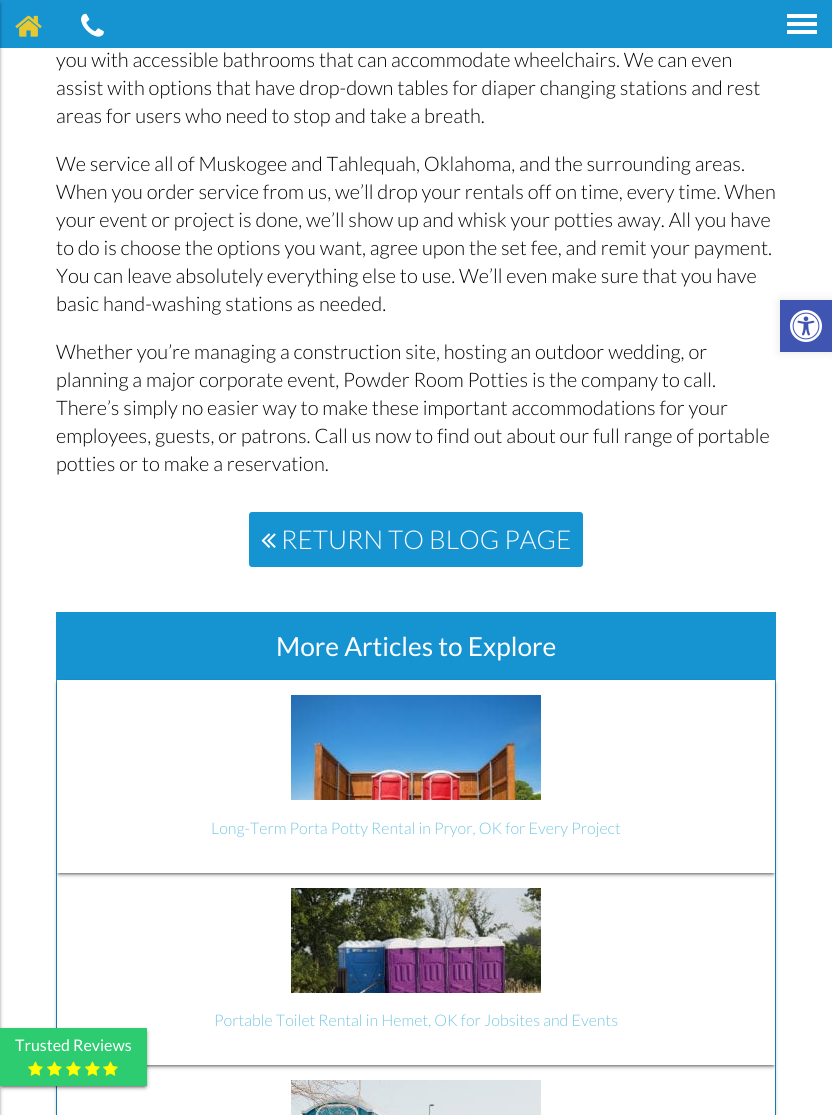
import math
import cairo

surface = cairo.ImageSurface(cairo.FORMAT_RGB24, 832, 1115)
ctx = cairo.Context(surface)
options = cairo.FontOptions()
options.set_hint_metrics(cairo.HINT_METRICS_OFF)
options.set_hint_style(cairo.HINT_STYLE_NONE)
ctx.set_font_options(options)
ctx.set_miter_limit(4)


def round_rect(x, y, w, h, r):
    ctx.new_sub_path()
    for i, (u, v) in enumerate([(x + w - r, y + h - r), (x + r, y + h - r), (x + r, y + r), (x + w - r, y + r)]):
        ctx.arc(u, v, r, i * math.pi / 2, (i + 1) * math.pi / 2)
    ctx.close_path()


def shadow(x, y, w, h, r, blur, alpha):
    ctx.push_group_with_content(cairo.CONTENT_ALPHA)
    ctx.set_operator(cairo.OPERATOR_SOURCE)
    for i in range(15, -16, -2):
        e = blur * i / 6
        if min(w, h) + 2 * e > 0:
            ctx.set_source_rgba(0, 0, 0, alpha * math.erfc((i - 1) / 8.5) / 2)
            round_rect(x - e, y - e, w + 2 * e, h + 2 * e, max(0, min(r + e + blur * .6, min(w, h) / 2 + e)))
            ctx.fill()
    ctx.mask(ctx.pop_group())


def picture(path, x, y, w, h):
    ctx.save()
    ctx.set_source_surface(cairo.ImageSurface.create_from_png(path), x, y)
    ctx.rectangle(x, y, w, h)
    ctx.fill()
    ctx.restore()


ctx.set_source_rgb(1, 1, 1)
ctx.paint()
ctx.set_source_rgb(0.086, 0.58, 0.824)
ctx.rectangle(0, 0, 832, 48)
ctx.fill()
picture("img1.png", 15, 15, 27, 22)
picture("img2.png", 81, 13, 23, 24)
ctx.set_source_rgb(1, 1, 1)
ctx.rectangle(787, 14, 30, 20)
ctx.fill()
ctx.set_source_rgb(0.086, 0.58, 0.824)
ctx.rectangle(787, 18, 30, 4)
ctx.fill()
ctx.rectangle(787, 26, 30, 4)
ctx.fill()
ctx.select_font_face("Lato Light")
ctx.set_font_size(20)
ctx.set_source_rgb(0, 0, 0)
ctx.move_to(56, 67)
ctx.show_text("you with accessible bathrooms that can accommodate wheelchairs. We can even")
ctx.move_to(56, 95)
ctx.show_text("assist with options that have drop-down tables for diaper changing stations and rest")
ctx.move_to(56, 123)
ctx.show_text("areas for users who need to stop and take a breath.")
ctx.move_to(56, 171)
ctx.show_text("We service all of Muskogee and Tahlequah, Oklahoma, and the surrounding areas.")
ctx.move_to(56, 199)
ctx.show_text("When you order service from us, we’ll drop your rentals off on time, every time. When")
ctx.move_to(56, 227)
ctx.show_text("your event or project is done, we’ll show up and whisk your potties away. All you have")
ctx.move_to(56, 255)
ctx.show_text("to do is choose the options you want, agree upon the set fee, and remit your payment.")
ctx.move_to(56, 283)
ctx.show_text("You can leave absolutely everything else to use. We’ll even make sure that you have")
ctx.move_to(56, 311)
ctx.show_text("basic hand-washing stations as needed.")
ctx.move_to(56, 359)
ctx.show_text("Whether you’re managing a construction site, hosting an outdoor wedding, or")
ctx.move_to(56, 387)
ctx.show_text("planning a major corporate event, Powder Room Potties is the company to call.")
ctx.move_to(56, 415)
ctx.show_text("There’s simply no easier way to make these important accommodations for your")
ctx.move_to(56, 443)
ctx.show_text("employees, guests, or patrons. Call us now to find out about our full range of portable")
ctx.move_to(56, 471)
ctx.show_text("potties or to make a reservation.")
ctx.set_source_rgb(0.086, 0.58, 0.824)
round_rect(249, 512, 334, 55, 3)
ctx.fill()
picture("img3.png", 261, 533, 15, 15)
ctx.set_font_size(26)
ctx.set_source_rgb(1, 1, 1)
ctx.move_to(281, 549)
ctx.show_text("RETURN TO BLOG PAGE")
ctx.rectangle(56.5, 612.5, 719, 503)
ctx.set_source_rgb(0.086, 0.58, 0.824)
ctx.set_line_width(1)
ctx.stroke()
ctx.rectangle(57, 613, 718, 67)
ctx.fill()
ctx.select_font_face("Lato")
ctx.set_font_size(26.25)
ctx.set_source_rgb(1, 1, 1)
ctx.move_to(276, 656)
ctx.show_text("More Articles to Explore")
ctx.set_source_rgb(0, 0, 0)
shadow(59, 877, 714, 188, 0, 2.5, 1)
ctx.save()
ctx.set_fill_rule(cairo.FILL_RULE_EVEN_ODD)
ctx.new_path()
ctx.move_to(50, 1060)
ctx.line_to(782, 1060)
ctx.line_to(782, 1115)
ctx.line_to(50, 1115)
ctx.close_path()
ctx.move_to(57, 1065)
ctx.line_to(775, 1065)
ctx.line_to(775, 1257)
ctx.line_to(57, 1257)
ctx.close_path()
ctx.clip()
shadow(59, 1069, 714, 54, 0, 2.5, 1)
ctx.restore()
ctx.set_source_rgb(1, 1, 1)
ctx.rectangle(57, 873, 718, 192)
ctx.fill()
ctx.set_source_rgb(0, 0, 0)
shadow(59, 684, 714, 189, 0, 2.5, 1)
ctx.set_source_rgb(1, 1, 1)
ctx.rectangle(57, 680, 718, 193)
ctx.fill()
picture("img4.png", 291, 695, 250, 105)
ctx.select_font_face("Lato Light")
ctx.set_font_size(16)
ctx.set_source_rgb(0.463, 0.78, 0.886)
ctx.move_to(211, 834)
ctx.show_text("Long-Term Porta Potty Rental in Pryor, OK for Every Project")
picture("img5.png", 291, 888, 250, 105)
ctx.move_to(214, 1026)
ctx.show_text("Portable Toilet Rental in Hemet, OK for Jobsites and Events")
picture("img6.png", 291, 1080, 250, 35)
ctx.set_source_rgb(0, 0, 0)
shadow(780, 300, 52, 52, 0, 5, 0.1)
ctx.set_source_rgb(0.251, 0.329, 0.698)
ctx.rectangle(780, 300, 52, 52)
ctx.fill()
picture("img7.png", 790, 310, 32, 32)
ctx.set_source_rgb(0, 0, 0)
shadow(-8, 4, 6, 1111, 0, 2.5, 1)
shadow(2, 1032, 143, 54, 0, 2.5, 1)
ctx.set_source_rgb(0.18, 0.8, 0.443)
ctx.rectangle(0, 1028, 147, 58)
ctx.fill()
ctx.select_font_face("Lato")
ctx.set_source_rgb(1, 1, 1)
ctx.move_to(15, 1051)
ctx.show_text("Trusted Reviews")
picture("img8.png", 28, 1061, 15, 15)
picture("img8.png", 47, 1061, 15, 15)
picture("img8.png", 66, 1061, 15, 15)
picture("img8.png", 85, 1061, 15, 15)
picture("img8.png", 103, 1061, 15, 15)
surface.write_to_png("page.png")
